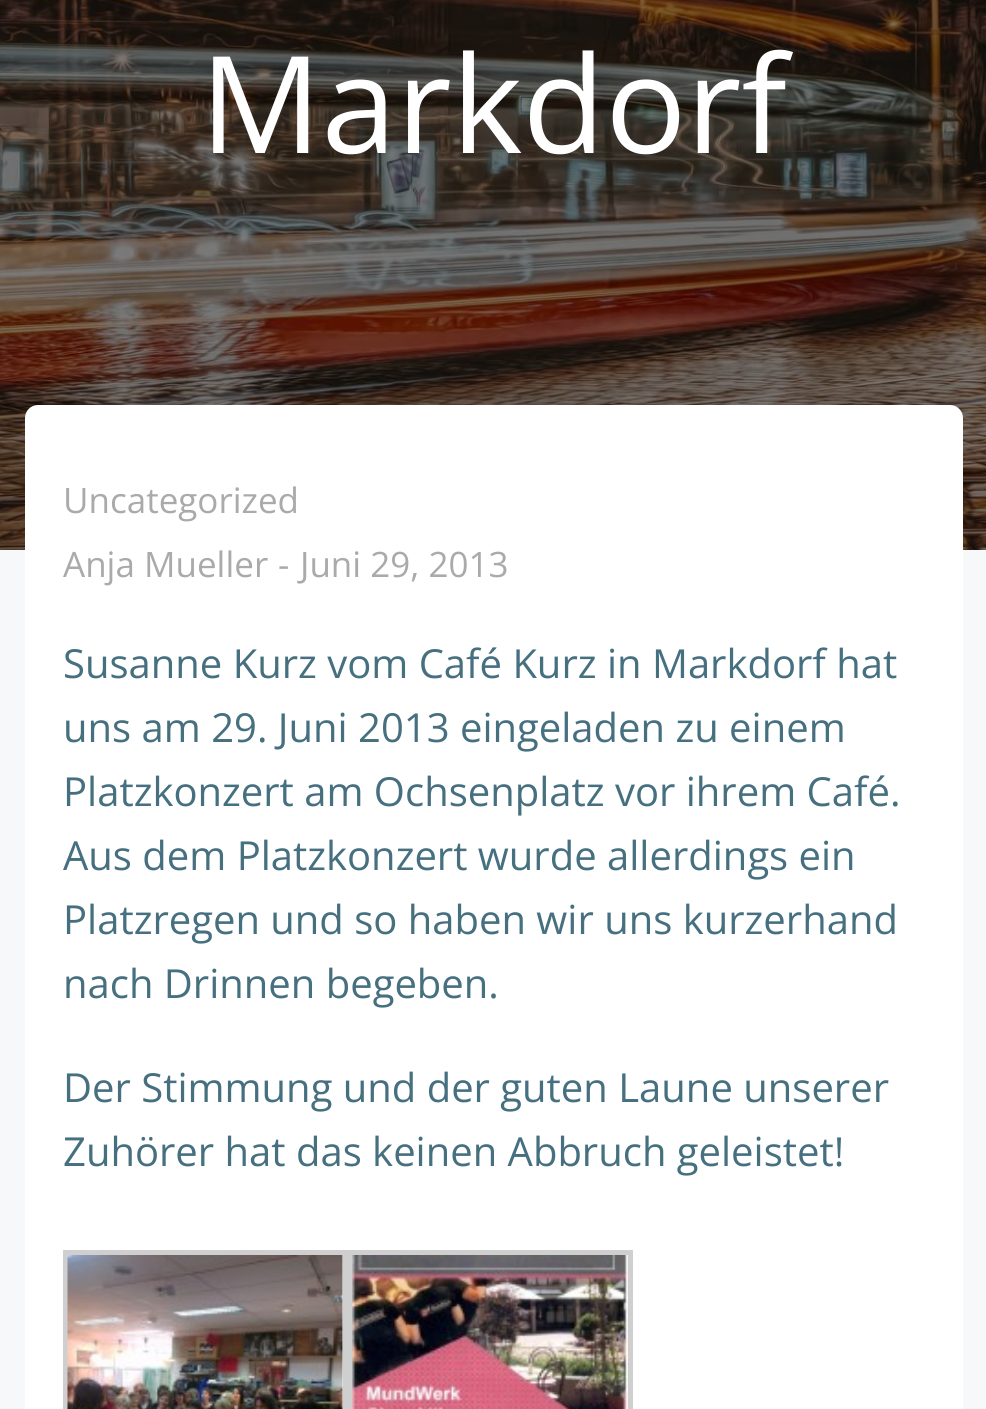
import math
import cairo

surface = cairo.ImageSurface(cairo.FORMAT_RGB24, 986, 1409)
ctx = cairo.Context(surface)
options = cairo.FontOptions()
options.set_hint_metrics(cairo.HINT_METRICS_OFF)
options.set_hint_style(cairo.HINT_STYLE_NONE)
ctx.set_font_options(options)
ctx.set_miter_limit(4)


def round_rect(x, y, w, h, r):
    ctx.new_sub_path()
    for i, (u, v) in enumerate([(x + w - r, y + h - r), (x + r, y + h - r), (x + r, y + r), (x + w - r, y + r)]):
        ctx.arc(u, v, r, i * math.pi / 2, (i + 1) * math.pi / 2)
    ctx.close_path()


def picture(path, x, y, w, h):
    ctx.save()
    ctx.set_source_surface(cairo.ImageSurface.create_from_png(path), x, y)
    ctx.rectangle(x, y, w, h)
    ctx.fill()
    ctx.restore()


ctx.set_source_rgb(1, 1, 1)
ctx.paint()
picture("img1.png", 0, 0, 986, 550)
ctx.select_font_face("Open Sans")
ctx.set_font_size(135)
ctx.set_source_rgb(1, 1, 1)
ctx.move_to(200, 153)
ctx.show_text("Markdorf")
ctx.set_source_rgb(0.961, 0.969, 0.973)
ctx.rectangle(0, 550, 986, 859)
ctx.fill()
ctx.set_source_rgb(1, 1, 1)
round_rect(25, 405, 938, 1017, 13)
ctx.fill()
ctx.set_font_size(35)
ctx.set_source_rgb(0.667, 0.667, 0.667)
ctx.move_to(63, 513)
ctx.show_text("Uncategorized")
ctx.move_to(63, 577)
ctx.show_text("Anja Mueller")
ctx.move_to(278, 577)
ctx.show_text("-")
ctx.move_to(300, 577)
ctx.show_text("Juni 29, 2013")
ctx.set_font_size(40)
ctx.set_source_rgb(0.275, 0.439, 0.498)
ctx.move_to(63, 678)
ctx.show_text("Susanne Kurz vom Café Kurz in Markdorf hat")
ctx.move_to(63, 742)
ctx.show_text("uns am 29. Juni 2013 eingeladen zu einem")
ctx.move_to(63, 806)
ctx.show_text("Platzkonzert am Ochsenplatz vor ihrem Café.")
ctx.move_to(63, 870)
ctx.show_text("Aus dem Platzkonzert wurde allerdings ein")
ctx.move_to(63, 934)
ctx.show_text("Platzregen und so haben wir uns kurzerhand")
ctx.move_to(63, 998)
ctx.show_text("nach Drinnen begeben.")
ctx.move_to(63, 1102)
ctx.show_text("Der Stimmung und der guten Laune unserer")
ctx.move_to(63, 1166)
ctx.show_text("Zuhörer hat das keinen Abbruch geleistet!")
ctx.rectangle(65.5, 1252.5, 280, 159)
ctx.set_source_rgb(0.812, 0.812, 0.812)
ctx.set_line_width(5)
ctx.stroke()
picture("img2.png", 67, 1255, 276, 154)
ctx.rectangle(350.5, 1252.5, 280, 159)
ctx.stroke()
picture("img3.png", 352, 1255, 276, 154)
surface.write_to_png("page.png")
